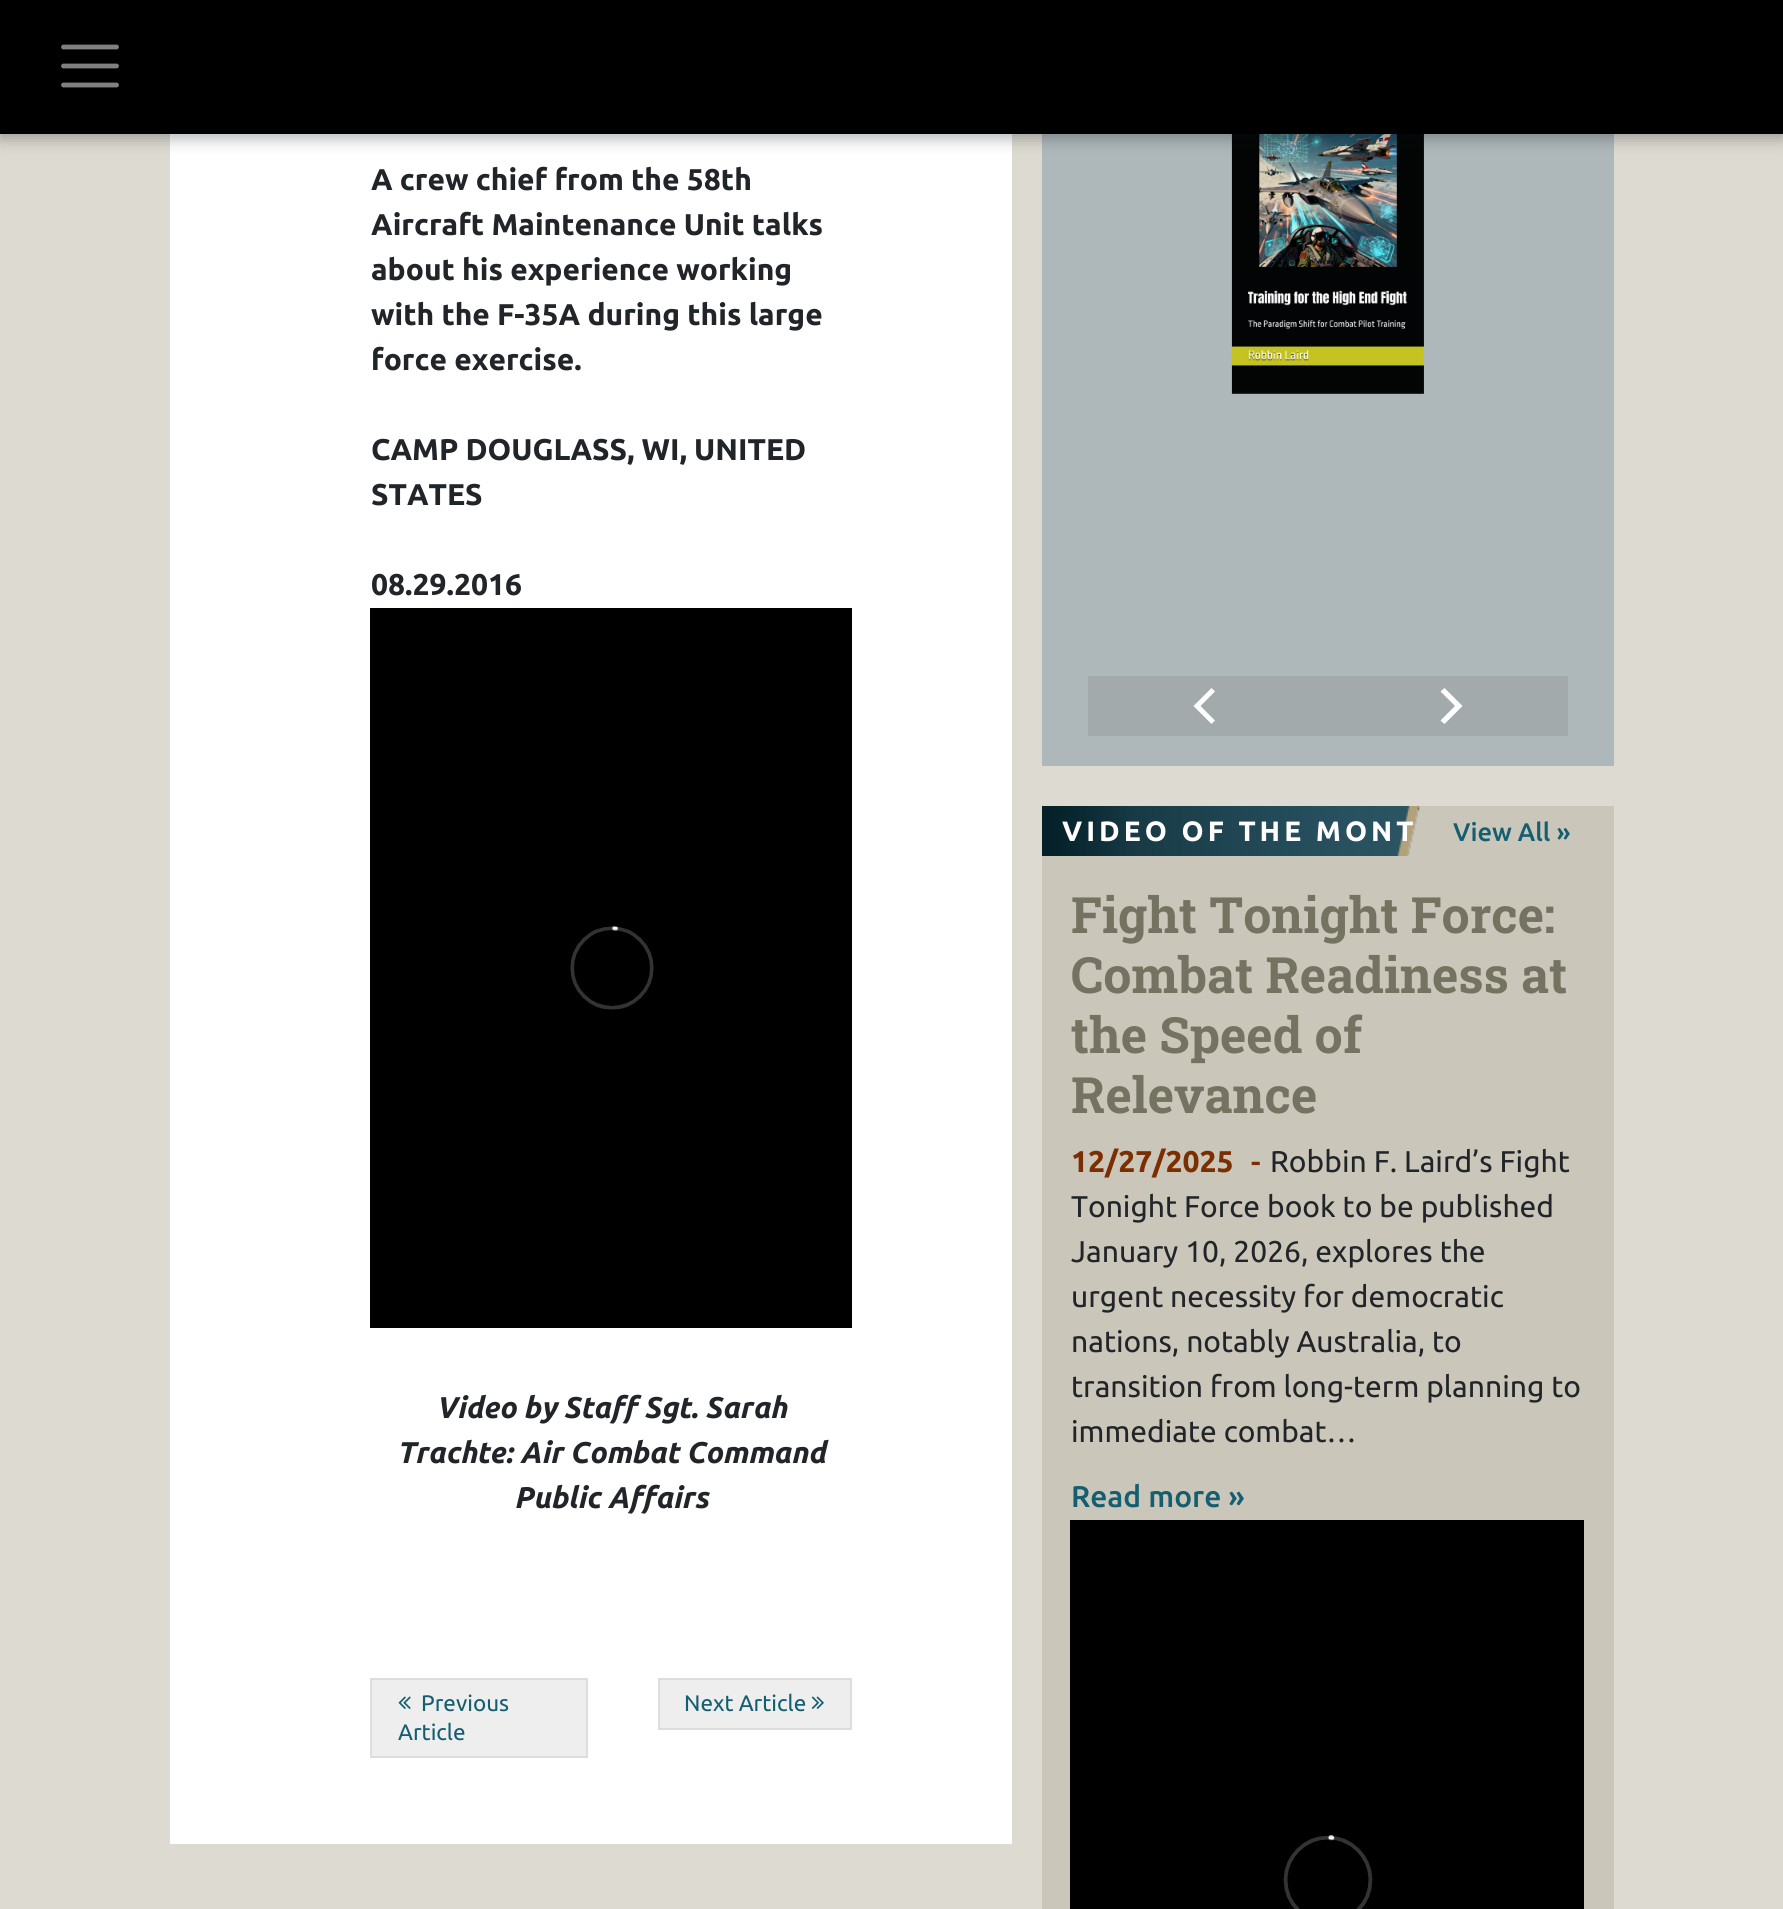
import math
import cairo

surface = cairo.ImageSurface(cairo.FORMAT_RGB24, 1783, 1909)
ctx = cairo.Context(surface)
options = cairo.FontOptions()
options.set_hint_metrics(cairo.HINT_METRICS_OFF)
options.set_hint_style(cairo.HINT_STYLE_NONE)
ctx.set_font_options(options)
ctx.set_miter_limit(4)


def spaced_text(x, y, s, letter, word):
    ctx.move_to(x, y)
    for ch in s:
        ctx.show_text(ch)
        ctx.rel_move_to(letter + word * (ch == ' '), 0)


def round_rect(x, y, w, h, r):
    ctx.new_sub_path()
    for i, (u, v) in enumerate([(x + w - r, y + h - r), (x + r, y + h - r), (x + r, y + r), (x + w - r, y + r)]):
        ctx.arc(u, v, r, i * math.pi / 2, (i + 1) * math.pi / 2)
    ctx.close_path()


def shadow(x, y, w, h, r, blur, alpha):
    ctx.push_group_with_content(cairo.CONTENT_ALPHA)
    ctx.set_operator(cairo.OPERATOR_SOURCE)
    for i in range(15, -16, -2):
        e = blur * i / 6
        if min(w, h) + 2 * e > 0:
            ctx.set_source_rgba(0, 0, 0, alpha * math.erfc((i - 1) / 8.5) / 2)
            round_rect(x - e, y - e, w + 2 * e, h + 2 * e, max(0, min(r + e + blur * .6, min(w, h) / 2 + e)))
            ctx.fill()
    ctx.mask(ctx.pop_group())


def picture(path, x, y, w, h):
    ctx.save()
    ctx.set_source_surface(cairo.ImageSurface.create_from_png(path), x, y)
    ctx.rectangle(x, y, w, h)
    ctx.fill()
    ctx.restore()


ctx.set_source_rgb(0.867, 0.855, 0.82)
ctx.paint()
ctx.set_source_rgb(1, 1, 1)
ctx.rectangle(170, 134, 842, 1710)
ctx.fill()
ctx.set_source_rgb(0.682, 0.718, 0.725)
ctx.rectangle(1042, 134, 572, 632)
ctx.fill()
picture("img4.png", 1231, 134, 193, 260)
ctx.set_source_rgb(0.031, 0.063, 0.075)
shadow(0, 4, 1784, 134, 0, 8, 0.33)
ctx.set_source_rgb(0, 0, 0)
ctx.rectangle(0, 0, 1783, 134)
ctx.fill()
ctx.new_path()
ctx.move_to(63.5, 47)
ctx.line_to(116.5, 47)
ctx.move_to(63.5, 66)
ctx.line_to(116.5, 66)
ctx.move_to(63.5, 85)
ctx.line_to(116.5, 85)
ctx.set_source_rgb(0.502, 0.502, 0.502)
ctx.set_line_width(4.8)
ctx.set_line_cap(cairo.LINE_CAP_ROUND)
ctx.stroke()
ctx.select_font_face("Ubuntu", cairo.FONT_SLANT_NORMAL, cairo.FONT_WEIGHT_BOLD)
ctx.set_font_size(30)
ctx.set_source_rgb(0.129, 0.145, 0.161)
ctx.move_to(371, 190)
ctx.show_text("A crew chief from the 58th")
ctx.move_to(371, 235)
ctx.show_text("Aircraft Maintenance Unit talks")
ctx.move_to(371, 280)
ctx.show_text("about his experience working")
ctx.move_to(371, 325)
ctx.show_text("with the F-35A during this large")
ctx.move_to(371, 370)
ctx.show_text("force exercise.")
ctx.move_to(371, 460)
ctx.show_text("CAMP DOUGLASS, WI, UNITED")
ctx.move_to(371, 505)
ctx.show_text("STATES")
ctx.move_to(371, 595)
ctx.show_text("08.29.2016")
picture("img1.png", 370, 608, 482, 720)
ctx.select_font_face("Ubuntu", cairo.FONT_SLANT_ITALIC, cairo.FONT_WEIGHT_BOLD)
ctx.move_to(436, 1418)
ctx.show_text("Video by Staff Sgt. Sarah")
ctx.move_to(397, 1463)
ctx.show_text("Trachte: Air Combat Command")
ctx.move_to(514, 1508)
ctx.show_text("Public Affairs")
ctx.set_source_rgb(0.933, 0.933, 0.933)
ctx.rectangle(371, 1679, 216, 78)
ctx.fill_preserve()
ctx.set_source_rgb(0.867, 0.867, 0.867)
ctx.set_line_width(2)
ctx.set_line_cap(cairo.LINE_CAP_BUTT)
ctx.stroke()
picture("img2.png", 398, 1696, 13, 13)
ctx.select_font_face("Ubuntu")
ctx.set_font_size(22.5)
ctx.set_source_rgb(0.082, 0.369, 0.443)
ctx.move_to(421, 1711)
ctx.show_text("Previous")
ctx.move_to(398, 1740)
ctx.show_text("Article")
ctx.set_source_rgb(0.933, 0.933, 0.933)
ctx.rectangle(659, 1679, 192, 50)
ctx.fill_preserve()
ctx.set_source_rgb(0.867, 0.867, 0.867)
ctx.stroke()
ctx.set_source_rgb(0.082, 0.369, 0.443)
ctx.move_to(684, 1711)
ctx.show_text("Next Article")
picture("img3.png", 811, 1696, 13, 13)
ctx.set_source_rgb(0.639, 0.667, 0.675)
ctx.rectangle(1088, 676, 480, 60)
ctx.fill()
ctx.set_source_rgb(1, 1, 1)
ctx.new_path()
ctx.move_to(1193.5, 706)
ctx.line_to(1211.5, 724)
ctx.line_to(1215, 720.5)
ctx.line_to(1200.5, 706)
ctx.line_to(1215, 691.5)
ctx.line_to(1211.5, 688)
ctx.close_path()
ctx.fill()
ctx.new_path()
ctx.move_to(1462.5, 706)
ctx.line_to(1444.5, 688)
ctx.line_to(1440.5, 691.5)
ctx.line_to(1455, 706)
ctx.line_to(1440.5, 720.5)
ctx.line_to(1444.5, 724)
ctx.close_path()
ctx.fill()
ctx.set_source_rgb(0.792, 0.776, 0.725)
ctx.rectangle(1407, 806, 207, 50)
ctx.fill()
picture("img5.png", 1042, 806, 378, 50)
ctx.select_font_face("Ubuntu", cairo.FONT_SLANT_NORMAL, cairo.FONT_WEIGHT_BOLD)
ctx.set_font_size(28)
ctx.set_source_rgb(1, 1, 1)
spaced_text(1062, 841, "VIDEO OF THE MONT", 4, 0)
ctx.select_font_face("Ubuntu Medium")
ctx.set_font_size(25.5)
ctx.set_source_rgb(0.082, 0.369, 0.443)
ctx.move_to(1453, 841)
ctx.show_text("View All »")
ctx.set_source_rgb(0.792, 0.776, 0.725)
ctx.rectangle(1042, 856, 572, 1053)
ctx.fill()
ctx.select_font_face("Roboto Slab", cairo.FONT_SLANT_NORMAL, cairo.FONT_WEIGHT_BOLD)
ctx.set_font_size(50)
ctx.set_source_rgb(0.455, 0.447, 0.376)
ctx.move_to(1071, 933)
ctx.show_text("Fight Tonight Force:")
ctx.move_to(1071, 993)
ctx.show_text("Combat Readiness at")
ctx.move_to(1071, 1053)
ctx.show_text("the Speed of")
ctx.move_to(1071, 1113)
ctx.show_text("Relevance")
ctx.select_font_face("Ubuntu", cairo.FONT_SLANT_NORMAL, cairo.FONT_WEIGHT_BOLD)
ctx.set_font_size(30)
ctx.set_source_rgb(0.482, 0.18, 0)
ctx.move_to(1071, 1172)
ctx.show_text("12/27/2025")
ctx.select_font_face("Ubuntu Medium")
ctx.move_to(1251, 1172)
ctx.show_text("-")
ctx.select_font_face("Ubuntu")
ctx.set_source_rgb(0.129, 0.145, 0.161)
ctx.move_to(1270, 1172)
ctx.show_text("Robbin F. Laird’s Fight")
ctx.move_to(1071, 1217)
ctx.show_text("Tonight Force book to be published")
ctx.move_to(1071, 1262)
ctx.show_text("January 10, 2026, explores the")
ctx.move_to(1071, 1307)
ctx.show_text("urgent necessity for democratic")
ctx.move_to(1071, 1352)
ctx.show_text("nations, notably Australia, to")
ctx.move_to(1071, 1397)
ctx.show_text("transition from long-term planning to")
ctx.move_to(1071, 1442)
ctx.show_text("immediate combat…")
ctx.select_font_face("Ubuntu Medium")
ctx.set_source_rgb(0.082, 0.369, 0.443)
ctx.move_to(1071, 1507)
ctx.show_text("Read more »")
picture("img6.png", 1070, 1520, 514, 389)
surface.write_to_png("page.png")
